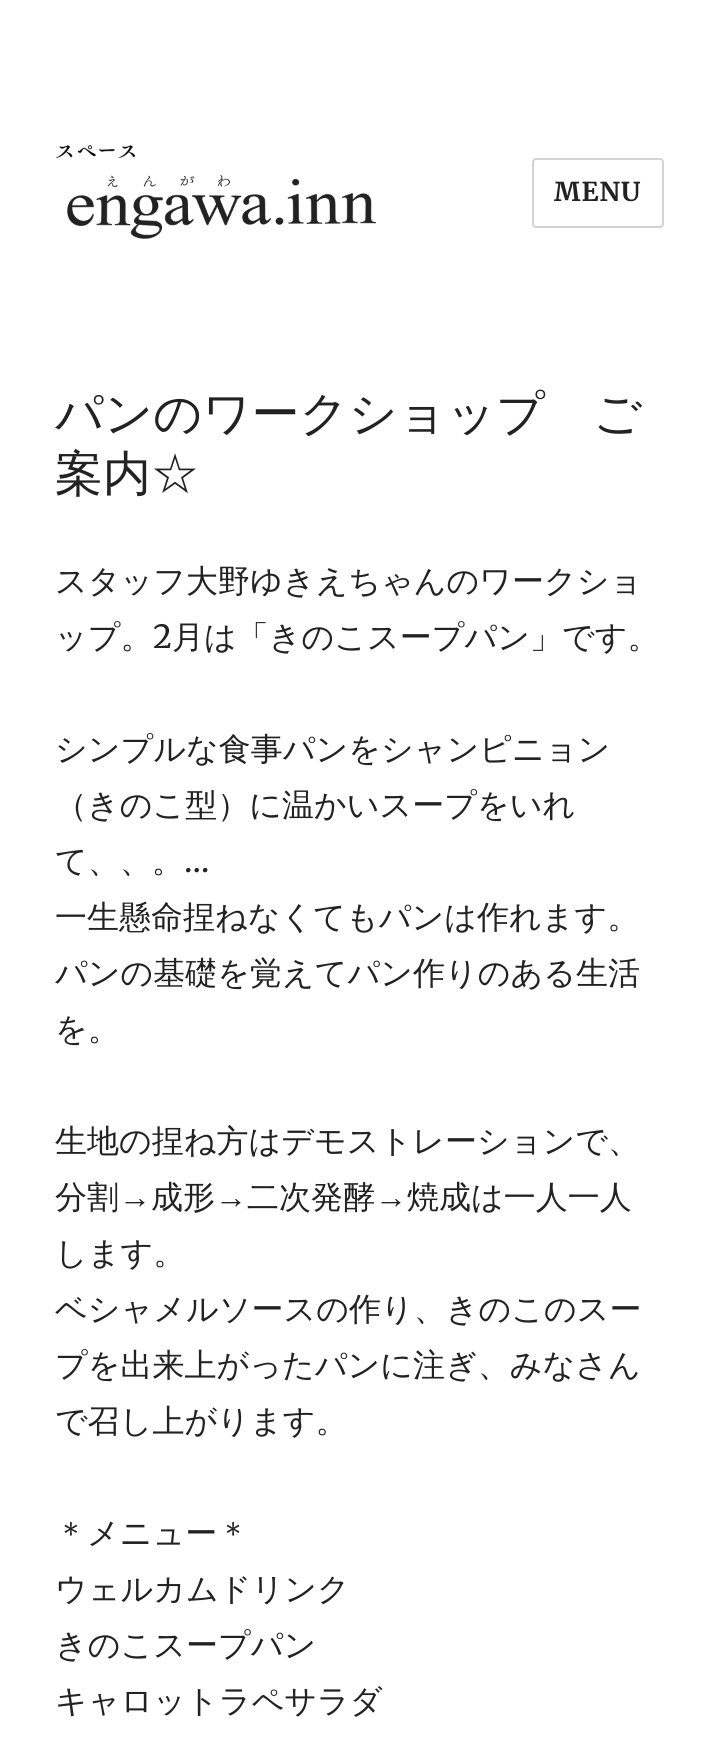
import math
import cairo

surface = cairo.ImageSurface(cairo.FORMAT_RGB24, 719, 1739)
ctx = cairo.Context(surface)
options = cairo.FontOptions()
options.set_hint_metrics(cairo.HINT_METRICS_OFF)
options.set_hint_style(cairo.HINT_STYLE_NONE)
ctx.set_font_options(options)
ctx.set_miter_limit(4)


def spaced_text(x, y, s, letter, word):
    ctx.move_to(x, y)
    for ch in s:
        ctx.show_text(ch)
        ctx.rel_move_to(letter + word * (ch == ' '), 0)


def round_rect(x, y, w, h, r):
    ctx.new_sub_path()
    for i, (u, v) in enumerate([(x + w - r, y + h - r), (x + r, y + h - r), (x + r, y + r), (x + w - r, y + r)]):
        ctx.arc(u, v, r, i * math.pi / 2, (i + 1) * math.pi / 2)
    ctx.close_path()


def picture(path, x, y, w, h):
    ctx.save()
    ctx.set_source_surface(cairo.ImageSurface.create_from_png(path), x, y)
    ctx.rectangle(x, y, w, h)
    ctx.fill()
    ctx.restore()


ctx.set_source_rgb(1, 1, 1)
ctx.paint()
picture("img1.png", 56, 145, 320, 94)
round_rect(533, 159, 130, 68, 3)
ctx.set_source_rgb(0.827, 0.827, 0.827)
ctx.stroke()
ctx.select_font_face("Merriweather", cairo.FONT_SLANT_NORMAL, cairo.FONT_WEIGHT_BOLD)
ctx.set_font_size(26)
ctx.set_source_rgb(0.133, 0.133, 0.133)
spaced_text(554, 201, "MENU", 1, 0)
ctx.select_font_face("WenQuanYi Zen Hei Medium")
ctx.set_font_size(48)
ctx.move_to(55, 430)
ctx.show_text("パンのワークショップ　ご")
ctx.move_to(55, 490)
ctx.show_text("案内☆")
ctx.set_font_size(32)
ctx.move_to(55, 592)
ctx.show_text("スタッフ大野ゆきえちゃんのワークショ")
ctx.move_to(55, 648)
ctx.show_text("ップ。")
ctx.select_font_face("Merriweather")
ctx.move_to(153, 648)
ctx.show_text("2")
ctx.select_font_face("WenQuanYi Zen Hei Medium")
ctx.move_to(172, 648)
ctx.show_text("月は「きのこスープパン」です。")
ctx.move_to(55, 760)
ctx.show_text("シンプルな食事パンをシャンピニョン")
ctx.move_to(55, 816)
ctx.show_text("（きのこ型）に温かいスープをいれ")
ctx.move_to(55, 872)
ctx.show_text("て、、。")
ctx.select_font_face("Merriweather")
ctx.move_to(184, 872)
ctx.show_text("…")
ctx.select_font_face("WenQuanYi Zen Hei Medium")
ctx.move_to(55, 928)
ctx.show_text("一生懸命捏ねなくてもパンは作れます。")
ctx.move_to(55, 984)
ctx.show_text("パンの基礎を覚えてパン作りのある生活")
ctx.move_to(55, 1040)
ctx.show_text("を。")
ctx.move_to(55, 1152)
ctx.show_text("生地の捏ね方はデモストレーションで、")
ctx.move_to(55, 1208)
ctx.show_text("分割")
ctx.select_font_face("Liberation Serif")
ctx.move_to(119, 1208)
ctx.show_text("→")
ctx.select_font_face("WenQuanYi Zen Hei Medium")
ctx.move_to(151, 1208)
ctx.show_text("成形")
ctx.select_font_face("Liberation Serif")
ctx.move_to(215, 1208)
ctx.show_text("→")
ctx.select_font_face("WenQuanYi Zen Hei Medium")
ctx.move_to(247, 1208)
ctx.show_text("二次発酵")
ctx.select_font_face("Liberation Serif")
ctx.move_to(375, 1208)
ctx.show_text("→")
ctx.select_font_face("WenQuanYi Zen Hei Medium")
ctx.move_to(407, 1208)
ctx.show_text("焼成は一人一人")
ctx.move_to(55, 1264)
ctx.show_text("します。")
ctx.move_to(55, 1320)
ctx.show_text("ベシャメルソースの作り、きのこのスー")
ctx.move_to(55, 1376)
ctx.show_text("プを出来上がったパンに注ぎ、みなさん")
ctx.move_to(55, 1432)
ctx.show_text("で召し上がります。")
ctx.move_to(55, 1544)
ctx.show_text("＊メニュー＊")
ctx.move_to(55, 1600)
ctx.show_text("ウェルカムドリンク")
ctx.move_to(55, 1656)
ctx.show_text("きのこスープパン")
ctx.move_to(55, 1712)
ctx.show_text("キャロットラペサラダ")
surface.write_to_png("page.png")
